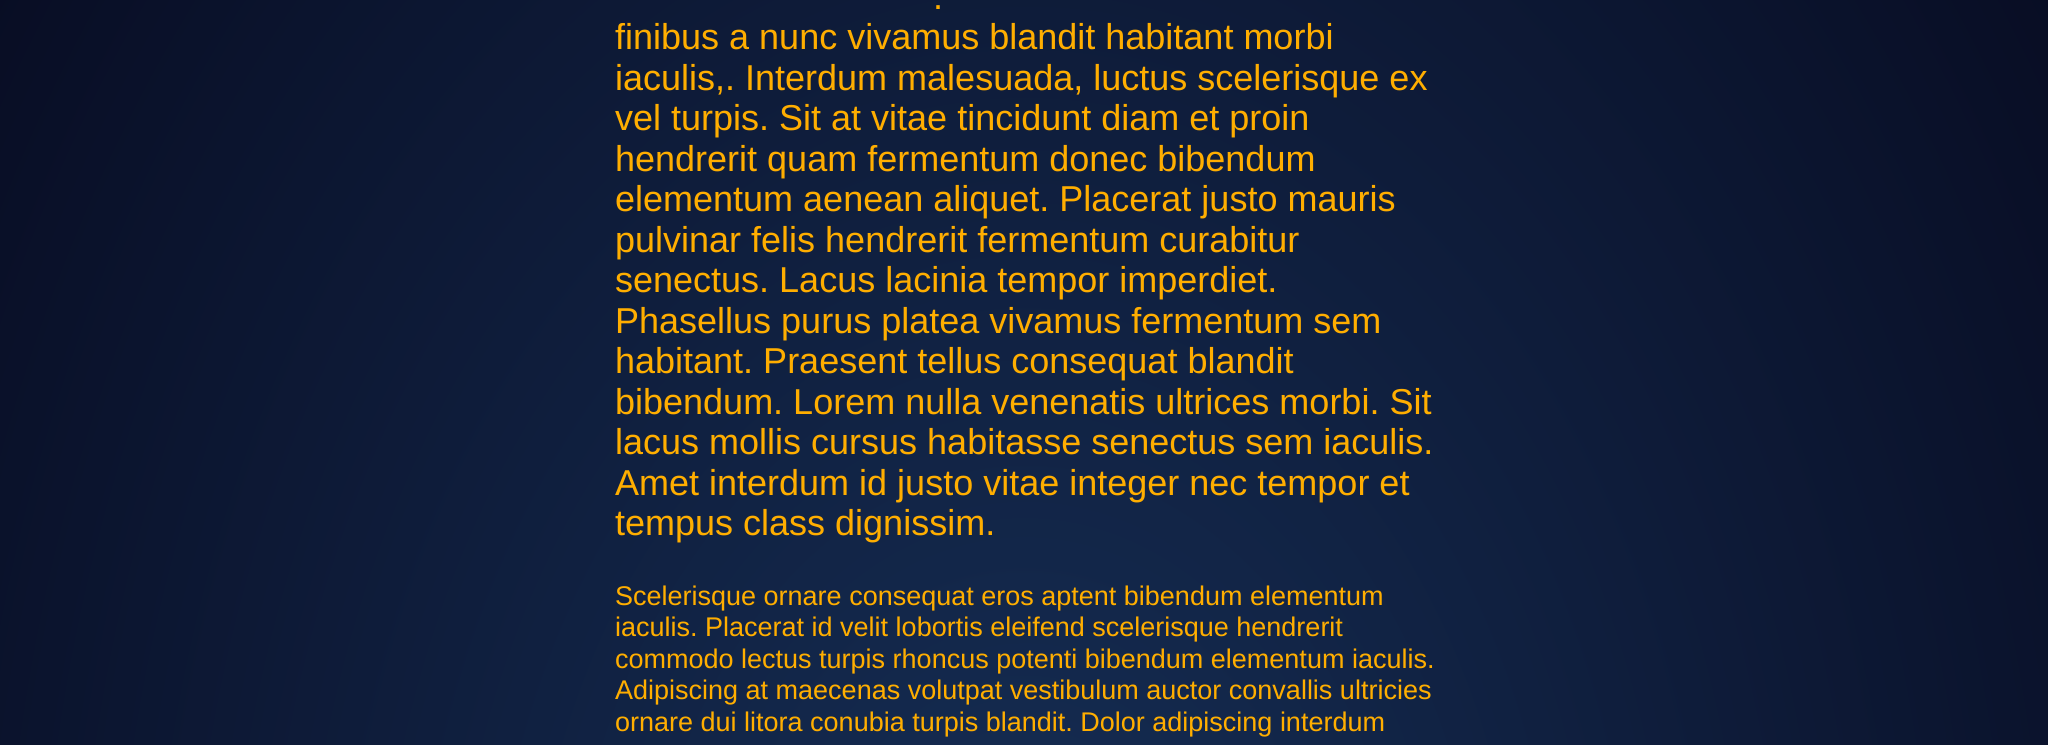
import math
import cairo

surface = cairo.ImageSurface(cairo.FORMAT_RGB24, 2048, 745)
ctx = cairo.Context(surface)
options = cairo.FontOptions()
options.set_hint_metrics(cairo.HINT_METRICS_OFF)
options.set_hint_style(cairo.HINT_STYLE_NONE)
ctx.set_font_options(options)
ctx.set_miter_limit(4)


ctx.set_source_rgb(1, 1, 1)
ctx.paint()
gradient = cairo.RadialGradient(0, 0, 0, 0, 0, 1)
gradient.set_matrix(cairo.Matrix(1 / 1449, 0, 0, 1 / 2078, -1 * 1025 / 1449, -1 * 1022 / 2078))
gradient.add_color_stop_rgba(0, 0.086, 0.184, 0.337, 1)
gradient.add_color_stop_rgba(1, 0.024, 0.031, 0.11, 1)
ctx.set_source(gradient)
ctx.rectangle(0, 0, 2048, 745)
ctx.fill()
ctx.select_font_face("Liberation Sans")
ctx.set_font_size(36)
ctx.set_source_rgb(1, 0.682, 0)
ctx.move_to(933, 9)
ctx.show_text(".")
ctx.move_to(615, 49)
ctx.show_text("finibus a nunc vivamus blandit habitant morbi")
ctx.move_to(615, 90)
ctx.show_text("iaculis,. Interdum malesuada, luctus scelerisque ex")
ctx.move_to(615, 130)
ctx.show_text("vel turpis. Sit at vitae tincidunt diam et proin")
ctx.move_to(615, 171)
ctx.show_text("hendrerit quam fermentum donec bibendum")
ctx.move_to(615, 211)
ctx.show_text("elementum aenean aliquet. Placerat justo mauris")
ctx.move_to(615, 252)
ctx.show_text("pulvinar felis hendrerit fermentum curabitur")
ctx.move_to(615, 292)
ctx.show_text("senectus. Lacus lacinia tempor imperdiet.")
ctx.move_to(615, 333)
ctx.show_text("Phasellus purus platea vivamus fermentum sem")
ctx.move_to(615, 373)
ctx.show_text("habitant. Praesent tellus consequat blandit")
ctx.move_to(615, 414)
ctx.show_text("bibendum. Lorem nulla venenatis ultrices morbi. Sit")
ctx.move_to(615, 454)
ctx.show_text("lacus mollis cursus habitasse senectus sem iaculis.")
ctx.move_to(615, 495)
ctx.show_text("Amet interdum id justo vitae integer nec tempor et")
ctx.move_to(615, 535)
ctx.show_text("tempus class dignissim.")
ctx.set_font_size(27)
ctx.move_to(615, 605)
ctx.show_text("Scelerisque ornare consequat eros aptent bibendum elementum")
ctx.move_to(615, 636)
ctx.show_text("iaculis. Placerat id velit lobortis eleifend scelerisque hendrerit")
ctx.move_to(615, 668)
ctx.show_text("commodo lectus turpis rhoncus potenti bibendum elementum iaculis.")
ctx.move_to(615, 699)
ctx.show_text("Adipiscing at maecenas volutpat vestibulum auctor convallis ultricies")
ctx.move_to(615, 731)
ctx.show_text("ornare dui litora conubia turpis blandit. Dolor adipiscing interdum")
surface.write_to_png("page.png")
